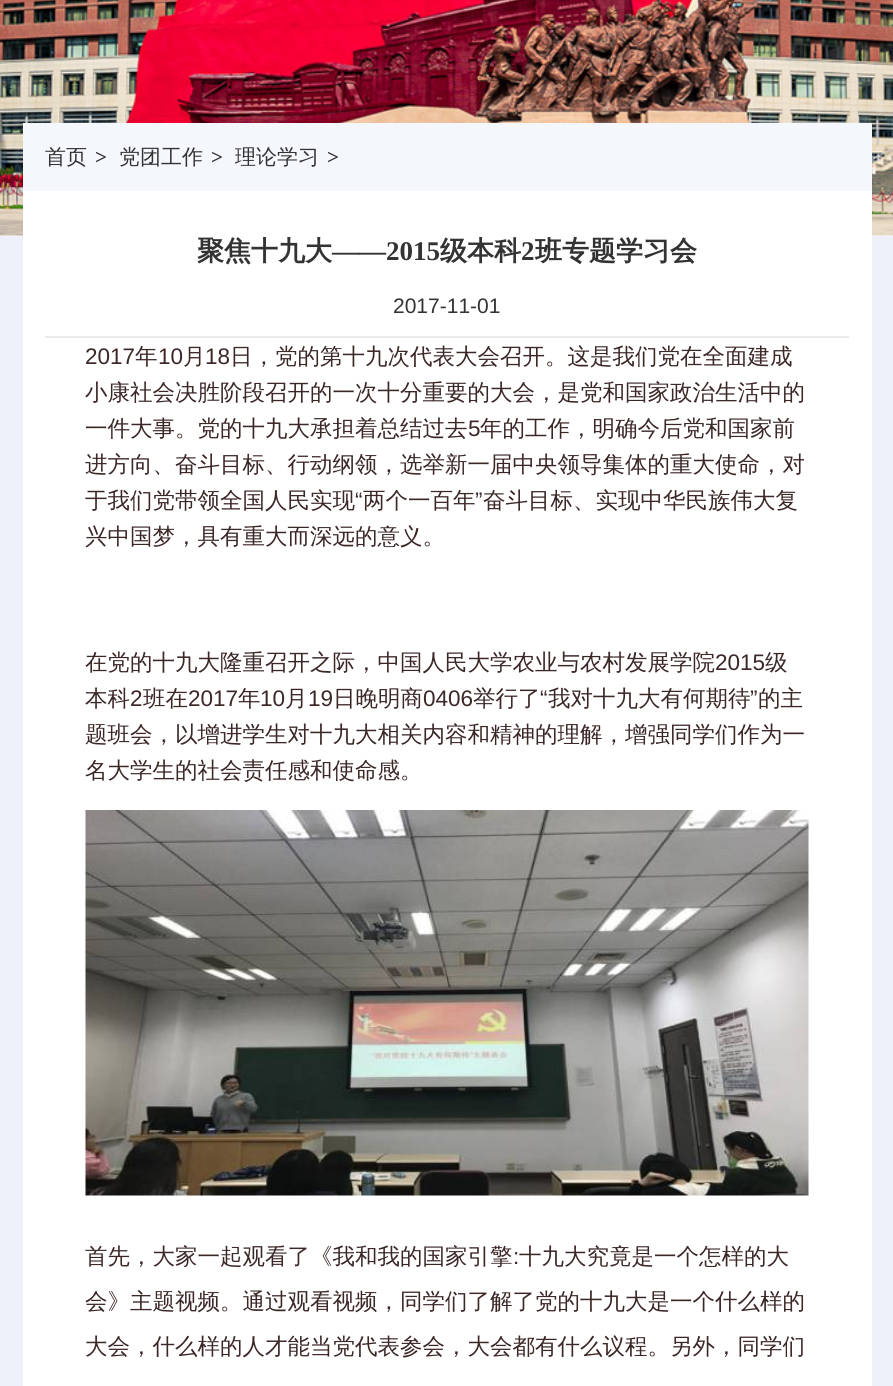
import math
import cairo

surface = cairo.ImageSurface(cairo.FORMAT_RGB24, 893, 1386)
ctx = cairo.Context(surface)
options = cairo.FontOptions()
options.set_hint_metrics(cairo.HINT_METRICS_OFF)
options.set_hint_style(cairo.HINT_STYLE_NONE)
ctx.set_font_options(options)
ctx.set_miter_limit(4)


def picture(path, x, y, w, h):
    ctx.save()
    ctx.set_source_surface(cairo.ImageSurface.create_from_png(path), x, y)
    ctx.rectangle(x, y, w, h)
    ctx.fill()
    ctx.restore()


ctx.set_source_rgb(1, 1, 1)
ctx.paint()
picture("img1.png", 0, 0, 893, 236)
ctx.set_source_rgb(0.933, 0.945, 0.98)
ctx.rectangle(0, 236, 893, 1150)
ctx.fill()
ctx.set_source_rgb(0.957, 0.965, 0.984)
ctx.rectangle(23, 123, 849, 68)
ctx.fill()
ctx.select_font_face("WenQuanYi Zen Hei Medium")
ctx.set_font_size(21)
ctx.set_source_rgb(0.2, 0.2, 0.2)
ctx.move_to(45, 164)
ctx.show_text("首页")
ctx.select_font_face("Liberation Serif", cairo.FONT_SLANT_NORMAL, cairo.FONT_WEIGHT_BOLD)
ctx.move_to(95, 164)
ctx.show_text(">")
ctx.select_font_face("WenQuanYi Zen Hei Medium")
ctx.move_to(119, 164)
ctx.show_text("党团工作")
ctx.select_font_face("Liberation Serif", cairo.FONT_SLANT_NORMAL, cairo.FONT_WEIGHT_BOLD)
ctx.move_to(211, 164)
ctx.show_text(">")
ctx.select_font_face("WenQuanYi Zen Hei Medium")
ctx.move_to(235, 164)
ctx.show_text("理论学习")
ctx.select_font_face("Liberation Serif", cairo.FONT_SLANT_NORMAL, cairo.FONT_WEIGHT_BOLD)
ctx.move_to(327, 164)
ctx.show_text(">")
ctx.set_source_rgb(1, 1, 1)
ctx.rectangle(23, 191, 849, 1195)
ctx.fill()
ctx.set_source_rgb(0.918, 0.918, 0.918)
ctx.rectangle(45, 336, 804, 2)
ctx.fill()
ctx.select_font_face("WenQuanYi Zen Hei", cairo.FONT_SLANT_NORMAL, cairo.FONT_WEIGHT_BOLD)
ctx.set_font_size(27)
ctx.set_source_rgb(0.2, 0.2, 0.2)
ctx.move_to(197, 260)
ctx.show_text("聚焦十九大")
ctx.select_font_face("Liberation Serif", cairo.FONT_SLANT_NORMAL, cairo.FONT_WEIGHT_BOLD)
ctx.move_to(332, 260)
ctx.show_text("——2015")
ctx.select_font_face("WenQuanYi Zen Hei", cairo.FONT_SLANT_NORMAL, cairo.FONT_WEIGHT_BOLD)
ctx.move_to(440, 260)
ctx.show_text("级本科")
ctx.select_font_face("Liberation Serif", cairo.FONT_SLANT_NORMAL, cairo.FONT_WEIGHT_BOLD)
ctx.move_to(521, 260)
ctx.show_text("2")
ctx.select_font_face("WenQuanYi Zen Hei", cairo.FONT_SLANT_NORMAL, cairo.FONT_WEIGHT_BOLD)
ctx.move_to(535, 260)
ctx.show_text("班专题学习会")
ctx.select_font_face("Liberation Sans")
ctx.set_font_size(21)
ctx.move_to(393, 313)
ctx.show_text("2017-11-01")
ctx.set_font_size(22.5)
ctx.set_source_rgb(0.235, 0.153, 0.153)
ctx.move_to(85, 364)
ctx.show_text("2017")
ctx.select_font_face("WenQuanYi Zen Hei Medium")
ctx.move_to(135, 364)
ctx.show_text("年")
ctx.select_font_face("Liberation Sans")
ctx.move_to(158, 364)
ctx.show_text("10")
ctx.select_font_face("WenQuanYi Zen Hei Medium")
ctx.move_to(183, 364)
ctx.show_text("月")
ctx.select_font_face("Liberation Sans")
ctx.move_to(205, 364)
ctx.show_text("18")
ctx.select_font_face("WenQuanYi Zen Hei Medium")
ctx.move_to(230, 364)
ctx.show_text("日，党的第十九次代表大会召开。这是我们党在全面建成")
ctx.move_to(85, 400)
ctx.show_text("小康社会决胜阶段召开的一次十分重要的大会，是党和国家政治生活中的")
ctx.move_to(85, 436)
ctx.show_text("一件大事。党的十九大承担着总结过去")
ctx.select_font_face("Liberation Sans")
ctx.move_to(468, 436)
ctx.show_text("5")
ctx.select_font_face("WenQuanYi Zen Hei Medium")
ctx.move_to(480, 436)
ctx.show_text("年的工作，明确今后党和国家前")
ctx.move_to(85, 472)
ctx.show_text("进方向、奋斗目标、行动纲领，选举新一届中央领导集体的重大使命，对")
ctx.move_to(85, 508)
ctx.show_text("于我们党带领全国人民实现")
ctx.select_font_face("Liberation Sans")
ctx.move_to(355, 508)
ctx.show_text("“")
ctx.select_font_face("WenQuanYi Zen Hei Medium")
ctx.move_to(363, 508)
ctx.show_text("两个一百年")
ctx.select_font_face("Liberation Sans")
ctx.move_to(475, 508)
ctx.show_text("”")
ctx.select_font_face("WenQuanYi Zen Hei Medium")
ctx.move_to(483, 508)
ctx.show_text("奋斗目标、实现中华民族伟大复")
ctx.move_to(85, 544)
ctx.show_text("兴中国梦，具有重大而深远的意义。")
ctx.move_to(85, 670)
ctx.show_text("在党的十九大隆重召开之际，中国人民大学农业与农村发展学院")
ctx.select_font_face("Liberation Sans")
ctx.move_to(715, 670)
ctx.show_text("2015")
ctx.select_font_face("WenQuanYi Zen Hei Medium")
ctx.move_to(765, 670)
ctx.show_text("级")
ctx.move_to(85, 706)
ctx.show_text("本科")
ctx.select_font_face("Liberation Sans")
ctx.move_to(130, 706)
ctx.show_text("2")
ctx.select_font_face("WenQuanYi Zen Hei Medium")
ctx.move_to(143, 706)
ctx.show_text("班在")
ctx.select_font_face("Liberation Sans")
ctx.move_to(188, 706)
ctx.show_text("2017")
ctx.select_font_face("WenQuanYi Zen Hei Medium")
ctx.move_to(238, 706)
ctx.show_text("年")
ctx.select_font_face("Liberation Sans")
ctx.move_to(260, 706)
ctx.show_text("10")
ctx.select_font_face("WenQuanYi Zen Hei Medium")
ctx.move_to(285, 706)
ctx.show_text("月")
ctx.select_font_face("Liberation Sans")
ctx.move_to(308, 706)
ctx.show_text("19")
ctx.select_font_face("WenQuanYi Zen Hei Medium")
ctx.move_to(333, 706)
ctx.show_text("日晚明商")
ctx.select_font_face("Liberation Sans")
ctx.move_to(423, 706)
ctx.show_text("0406")
ctx.select_font_face("WenQuanYi Zen Hei Medium")
ctx.move_to(473, 706)
ctx.show_text("举行了")
ctx.select_font_face("Liberation Sans")
ctx.move_to(540, 706)
ctx.show_text("“")
ctx.select_font_face("WenQuanYi Zen Hei Medium")
ctx.move_to(548, 706)
ctx.show_text("我对十九大有何期待")
ctx.select_font_face("Liberation Sans")
ctx.move_to(750, 706)
ctx.show_text("”")
ctx.select_font_face("WenQuanYi Zen Hei Medium")
ctx.move_to(758, 706)
ctx.show_text("的主")
ctx.move_to(85, 742)
ctx.show_text("题班会，以增进学生对十九大相关内容和精神的理解，增强同学们作为一")
ctx.move_to(85, 778)
ctx.show_text("名大学生的社会责任感和使命感。")
picture("img2.png", 85, 810, 724, 386)
ctx.move_to(85, 1264)
ctx.show_text("首先，大家一起观看了《我和我的国家引擎")
ctx.select_font_face("Liberation Sans")
ctx.move_to(513, 1264)
ctx.show_text(":")
ctx.select_font_face("WenQuanYi Zen Hei Medium")
ctx.move_to(519, 1264)
ctx.show_text("十九大究竟是一个怎样的大")
ctx.move_to(85, 1309)
ctx.show_text("会》主题视频。通过观看视频，同学们了解了党的十九大是一个什么样的")
ctx.move_to(85, 1354)
ctx.show_text("大会，什么样的人才能当党代表参会，大会都有什么议程。另外，同学们")
surface.write_to_png("page.png")
